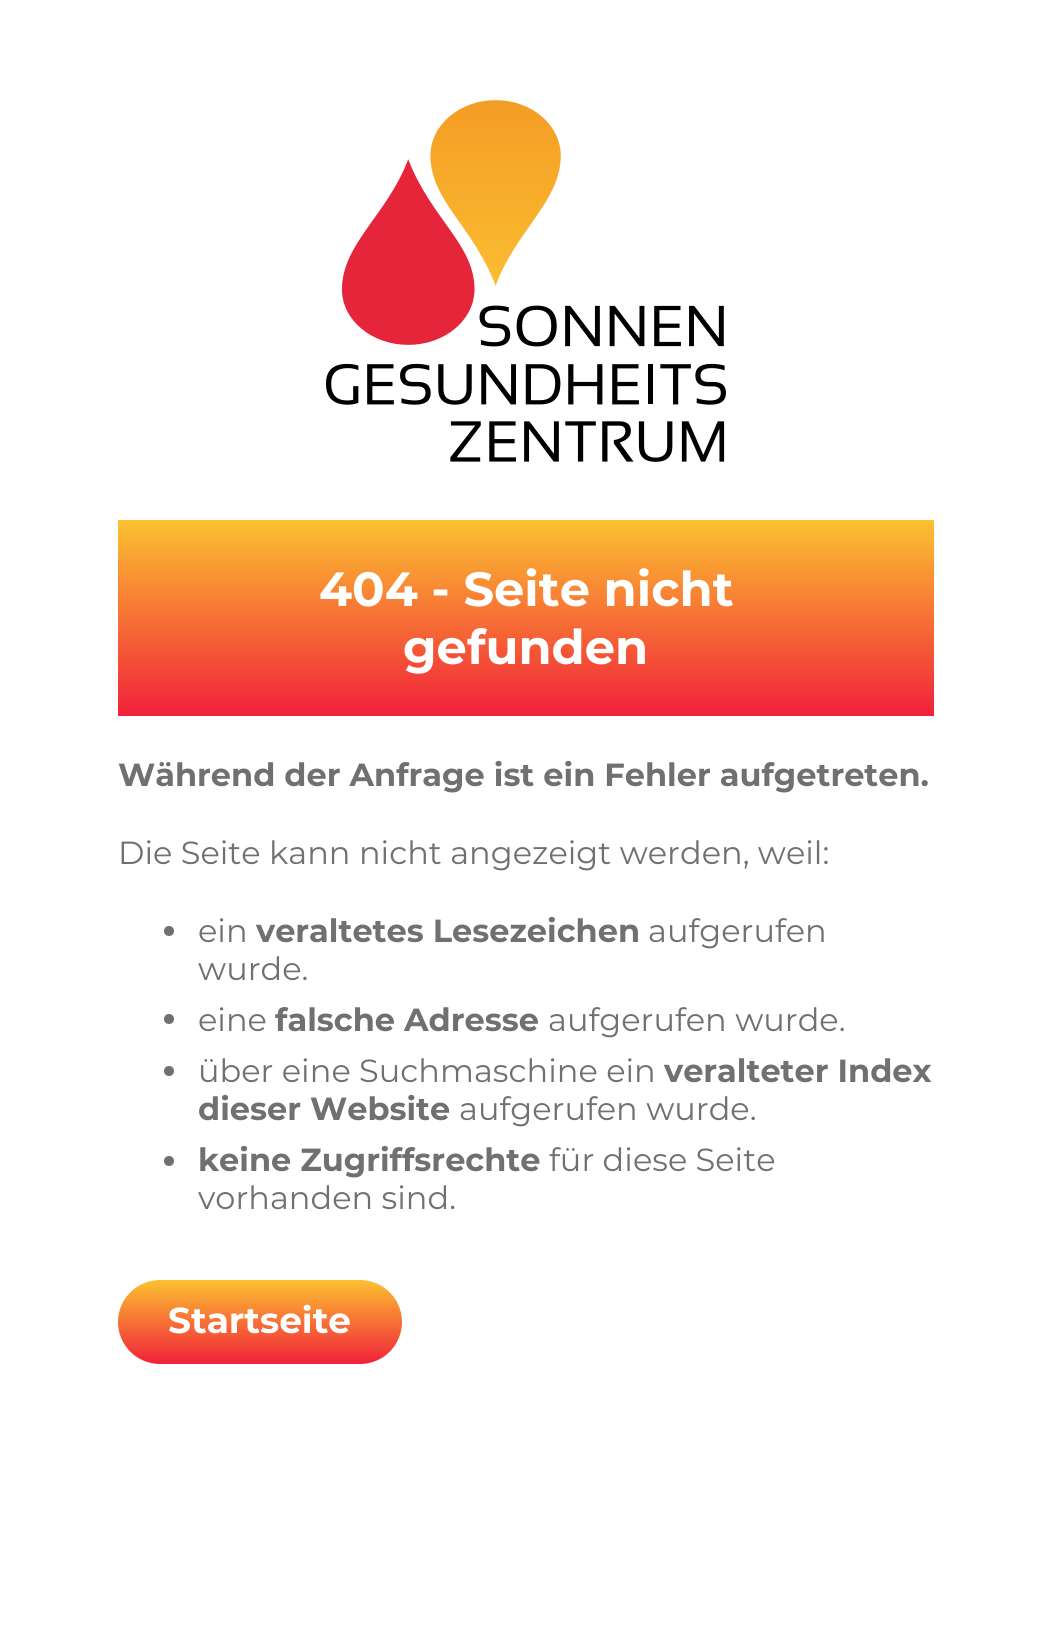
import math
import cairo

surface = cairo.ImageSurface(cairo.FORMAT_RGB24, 1051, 1627)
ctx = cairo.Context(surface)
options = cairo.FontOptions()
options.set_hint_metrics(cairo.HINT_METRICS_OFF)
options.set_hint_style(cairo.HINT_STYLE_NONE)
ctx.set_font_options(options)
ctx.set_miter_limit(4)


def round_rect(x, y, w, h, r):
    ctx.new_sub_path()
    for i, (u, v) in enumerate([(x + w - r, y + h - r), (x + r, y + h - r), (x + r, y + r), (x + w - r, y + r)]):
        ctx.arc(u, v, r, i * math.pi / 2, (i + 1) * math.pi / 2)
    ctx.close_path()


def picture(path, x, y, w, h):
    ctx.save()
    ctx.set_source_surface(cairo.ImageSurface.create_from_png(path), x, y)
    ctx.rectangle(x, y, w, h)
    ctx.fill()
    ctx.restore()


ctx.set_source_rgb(1, 1, 1)
ctx.paint()
picture("img1.png", 326, 100, 400, 362)
gradient = cairo.LinearGradient(526, 520, 526, 716)
gradient.add_color_stop_rgba(0, 0.988, 0.757, 0.192, 1)
gradient.add_color_stop_rgba(1, 0.945, 0.129, 0.227, 1)
ctx.set_source(gradient)
ctx.rectangle(118, 520, 816, 196)
ctx.fill()
ctx.select_font_face("Montserrat", cairo.FONT_SLANT_NORMAL, cairo.FONT_WEIGHT_BOLD)
ctx.set_font_size(48)
ctx.set_source_rgb(1, 1, 1)
ctx.move_to(319, 606)
ctx.show_text("404 - Seite nicht")
ctx.move_to(403, 664)
ctx.show_text("gefunden")
ctx.set_font_size(32)
ctx.set_source_rgb(0.439, 0.439, 0.439)
ctx.move_to(118, 786)
ctx.show_text("Während der Anfrage ist ein Fehler aufgetreten.")
ctx.select_font_face("Montserrat")
ctx.move_to(118, 864)
ctx.show_text("Die Seite kann nicht angezeigt werden, weil:")
ctx.new_path()
ctx.arc(169, 931, 5, 0, 2 * math.pi)
ctx.fill()
ctx.move_to(198, 942)
ctx.show_text("ein")
ctx.select_font_face("Montserrat", cairo.FONT_SLANT_NORMAL, cairo.FONT_WEIGHT_BOLD)
ctx.move_to(256, 942)
ctx.show_text("veraltetes Lesezeichen")
ctx.select_font_face("Montserrat")
ctx.move_to(648, 942)
ctx.show_text("aufgerufen")
ctx.move_to(198, 980)
ctx.show_text("wurde.")
ctx.new_path()
ctx.arc(169, 1019, 5, 0, 2 * math.pi)
ctx.fill()
ctx.move_to(198, 1031)
ctx.show_text("eine")
ctx.select_font_face("Montserrat", cairo.FONT_SLANT_NORMAL, cairo.FONT_WEIGHT_BOLD)
ctx.move_to(275, 1031)
ctx.show_text("falsche Adresse")
ctx.select_font_face("Montserrat")
ctx.move_to(548, 1031)
ctx.show_text("aufgerufen wurde.")
ctx.new_path()
ctx.arc(169, 1071, 5, 0, 2 * math.pi)
ctx.fill()
ctx.move_to(198, 1082)
ctx.show_text("über eine Suchmaschine ein")
ctx.select_font_face("Montserrat", cairo.FONT_SLANT_NORMAL, cairo.FONT_WEIGHT_BOLD)
ctx.move_to(664, 1082)
ctx.show_text("veralteter Index")
ctx.move_to(198, 1120)
ctx.show_text("dieser Website")
ctx.select_font_face("Montserrat")
ctx.move_to(459, 1120)
ctx.show_text("aufgerufen wurde.")
ctx.new_path()
ctx.arc(169, 1161, 5, 0, 2 * math.pi)
ctx.fill()
ctx.select_font_face("Montserrat", cairo.FONT_SLANT_NORMAL, cairo.FONT_WEIGHT_BOLD)
ctx.move_to(198, 1171)
ctx.show_text("keine Zugriffsrechte")
ctx.select_font_face("Montserrat")
ctx.move_to(549, 1171)
ctx.show_text("für diese Seite")
ctx.move_to(198, 1209)
ctx.show_text("vorhanden sind.")
gradient = cairo.LinearGradient(260, 1280, 260, 1364)
gradient.add_color_stop_rgba(0, 0.988, 0.757, 0.192, 1)
gradient.add_color_stop_rgba(1, 0.945, 0.129, 0.227, 1)
ctx.set_source(gradient)
round_rect(118, 1280, 284, 84, 42)
ctx.fill()
ctx.select_font_face("Montserrat", cairo.FONT_SLANT_NORMAL, cairo.FONT_WEIGHT_BOLD)
ctx.set_font_size(36)
ctx.set_source_rgb(1, 1, 1)
ctx.move_to(168, 1333)
ctx.show_text("Startseite")
surface.write_to_png("page.png")
